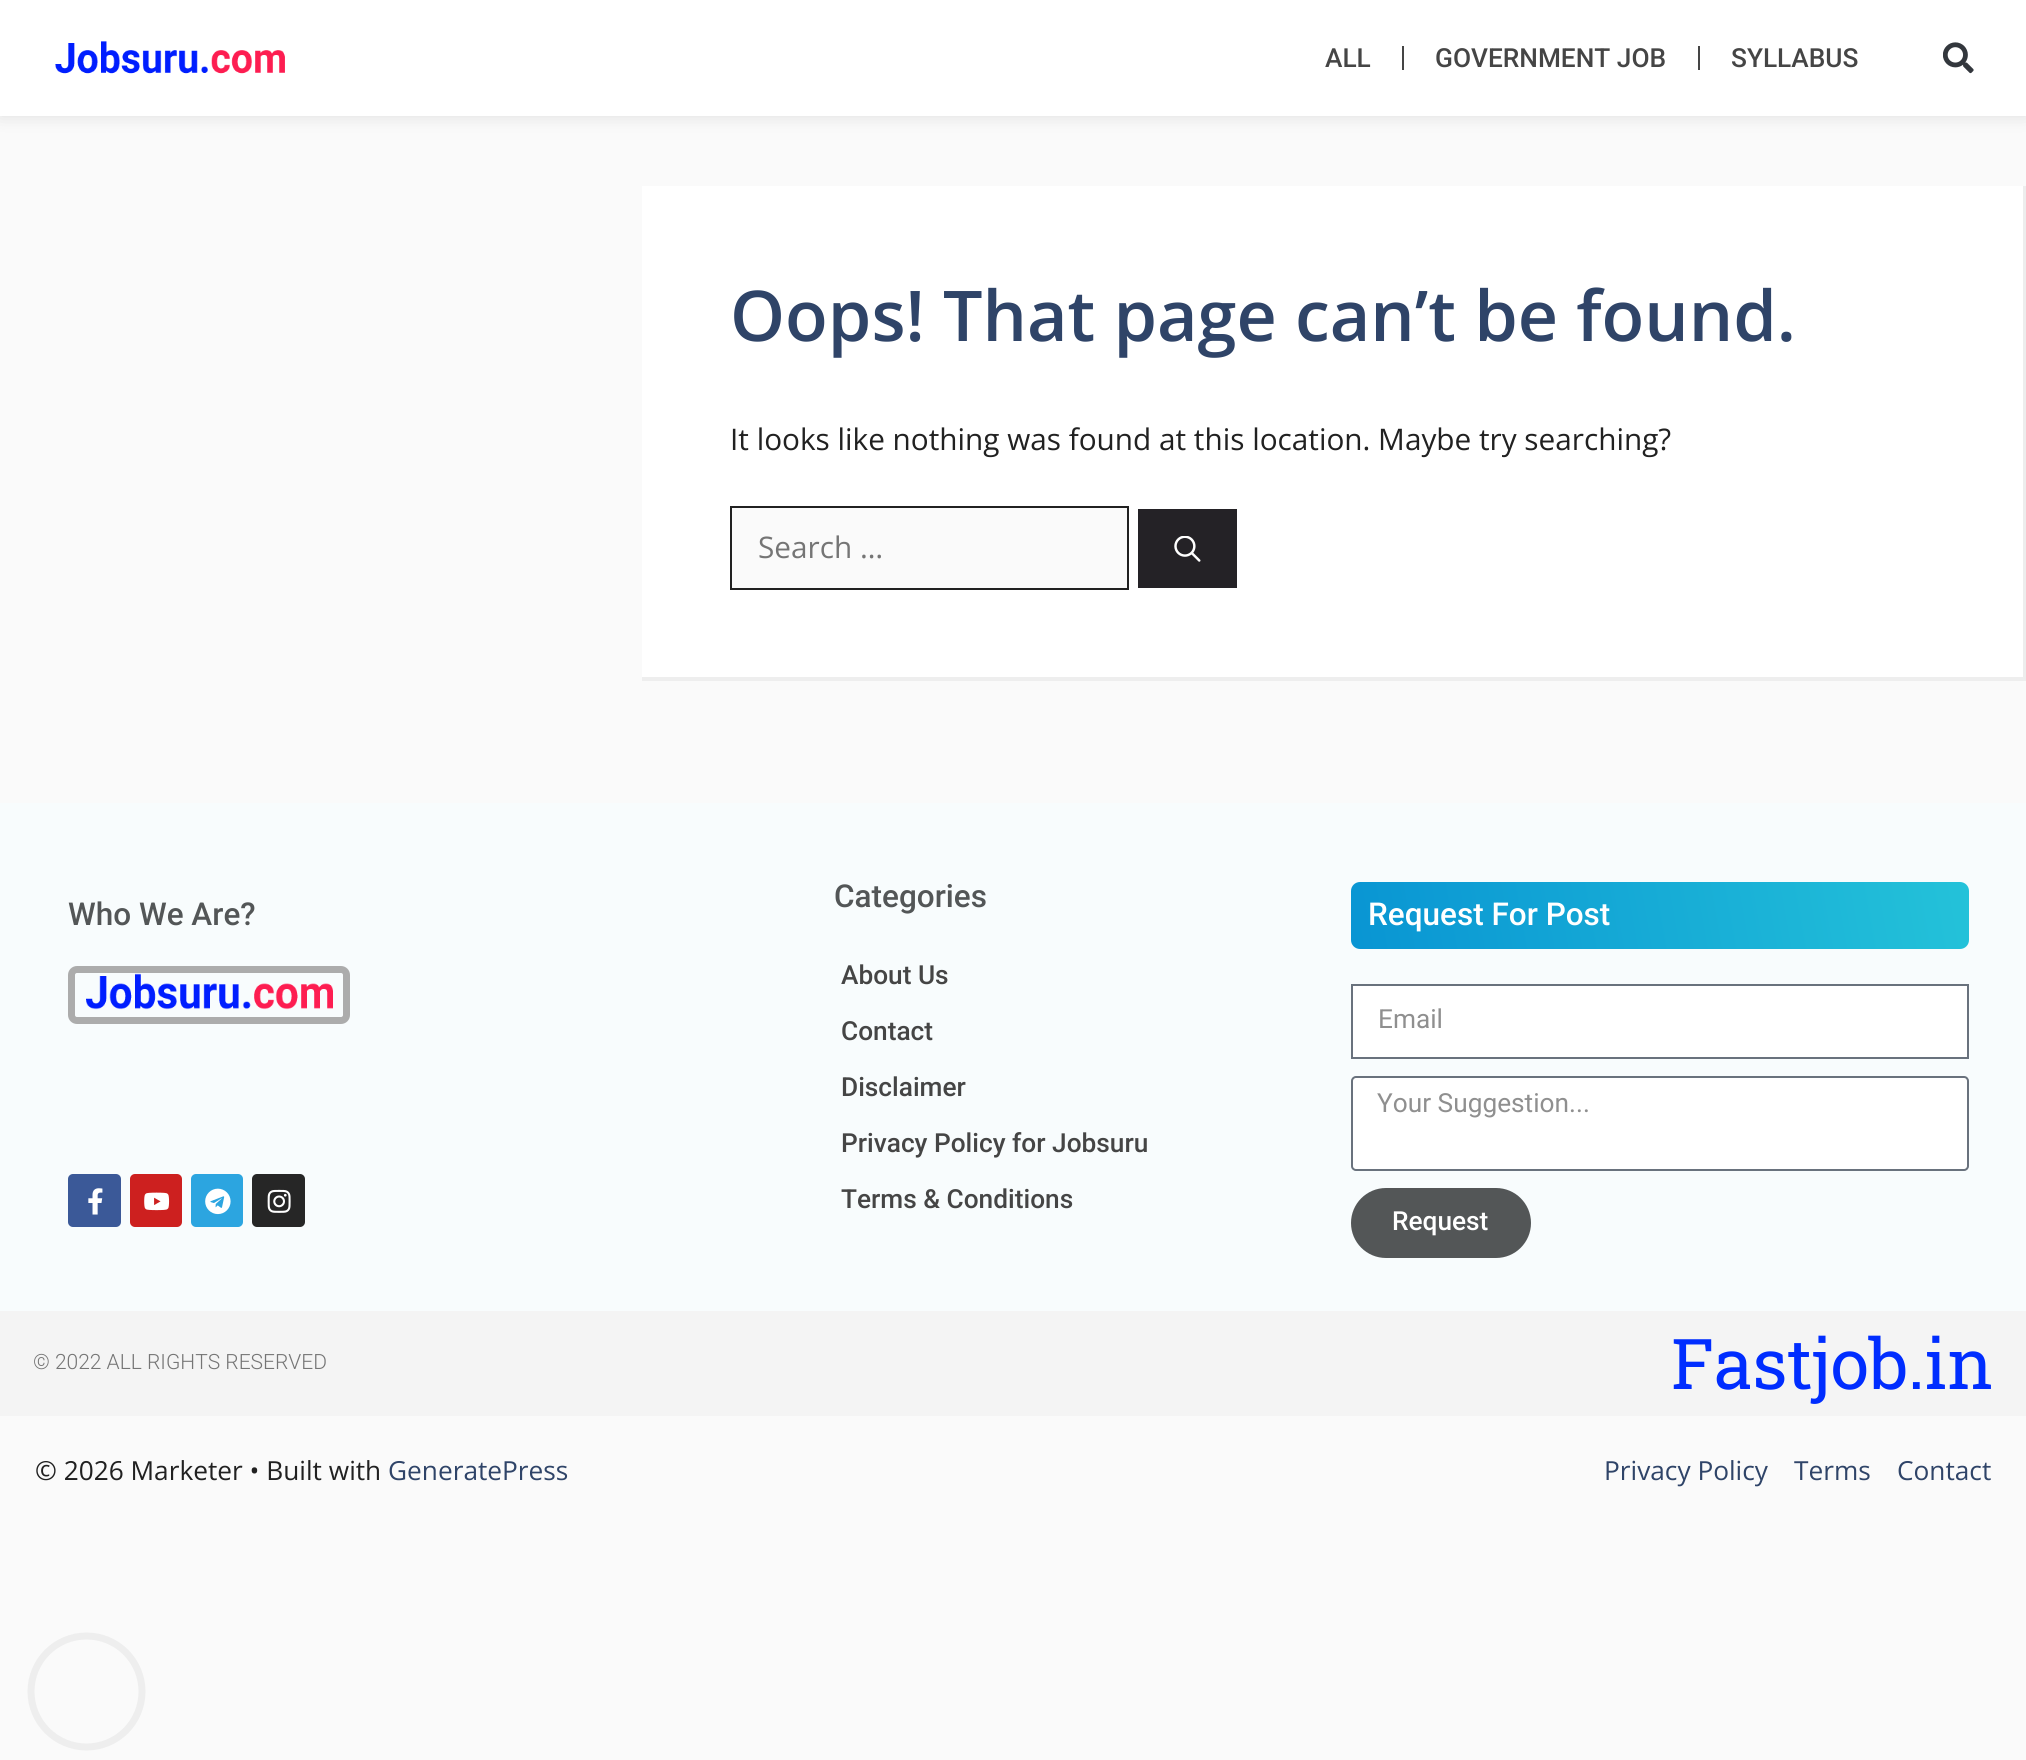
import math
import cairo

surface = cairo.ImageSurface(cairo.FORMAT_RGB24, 2026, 1760)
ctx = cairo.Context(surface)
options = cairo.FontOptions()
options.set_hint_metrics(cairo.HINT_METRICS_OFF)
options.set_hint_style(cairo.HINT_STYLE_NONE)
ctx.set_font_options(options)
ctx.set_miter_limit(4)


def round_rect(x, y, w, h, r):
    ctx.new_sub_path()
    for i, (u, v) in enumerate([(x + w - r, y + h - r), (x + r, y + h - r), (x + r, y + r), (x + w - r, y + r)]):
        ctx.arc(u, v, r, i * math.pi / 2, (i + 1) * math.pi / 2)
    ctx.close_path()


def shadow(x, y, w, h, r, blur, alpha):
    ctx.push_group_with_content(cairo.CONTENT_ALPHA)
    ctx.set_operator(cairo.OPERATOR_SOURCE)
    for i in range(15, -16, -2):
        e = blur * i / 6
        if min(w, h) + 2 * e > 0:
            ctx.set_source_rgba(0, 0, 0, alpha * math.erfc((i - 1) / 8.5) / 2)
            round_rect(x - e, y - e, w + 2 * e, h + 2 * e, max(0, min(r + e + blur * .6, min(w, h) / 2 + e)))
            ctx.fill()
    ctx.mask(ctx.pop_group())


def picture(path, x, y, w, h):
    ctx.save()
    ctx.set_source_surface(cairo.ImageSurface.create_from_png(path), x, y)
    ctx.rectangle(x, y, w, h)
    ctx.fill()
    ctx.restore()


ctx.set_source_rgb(0.98, 0.98, 0.98)
ctx.paint()
ctx.set_source_rgb(0, 0, 0)
shadow(0, 0, 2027, 116, 0, 9, 0.11)
ctx.set_source_rgb(1, 1, 1)
ctx.rectangle(0, 0, 2026, 116)
ctx.fill()
picture("img1.png", 55, 41, 230, 33)
ctx.select_font_face("Roboto Medium")
ctx.set_font_size(26.25)
ctx.set_source_rgb(0.271, 0.271, 0.271)
ctx.move_to(1325, 67)
ctx.show_text("ALL")
ctx.rectangle(1402, 46, 2, 24)
ctx.fill()
ctx.move_to(1435, 67)
ctx.show_text("GOVERNMENT JOB")
ctx.rectangle(1698, 46, 2, 24)
ctx.fill()
ctx.move_to(1731, 67)
ctx.show_text("SYLLABUS")
picture("img2.png", 1943, 42, 31, 32)
ctx.arc(86.5, 1691.5, 55.5, 0, 2 * math.pi)
ctx.set_source_rgb(0.933, 0.933, 0.933)
ctx.set_line_width(7)
ctx.stroke()
ctx.set_source_rgb(1, 1, 1)
ctx.rectangle(642, 186, 1384, 495)
ctx.fill()
ctx.set_source_rgb(0.929, 0.929, 0.929)
ctx.new_path()
ctx.move_to(2026, 186)
ctx.line_to(2026, 681)
ctx.line_to(2023, 677)
ctx.line_to(2023, 186)
ctx.close_path()
ctx.fill()
ctx.set_source_rgba(0, 0, 0, 0.07)
ctx.new_path()
ctx.move_to(2026, 681)
ctx.line_to(642, 681)
ctx.line_to(642, 677)
ctx.line_to(2023, 677)
ctx.close_path()
ctx.fill()
ctx.select_font_face("Open Sans SemiBold")
ctx.set_font_size(70)
ctx.set_source_rgb(0.184, 0.267, 0.408)
ctx.move_to(730, 341)
ctx.show_text("Oops! That page can’t be found.")
ctx.select_font_face("Open Sans")
ctx.set_font_size(29.75)
ctx.set_source_rgb(0.129, 0.129, 0.129)
ctx.move_to(730, 450)
ctx.show_text("It looks like nothing was found at this location. Maybe try searching?")
ctx.set_source_rgb(0.98, 0.98, 0.98)
ctx.rectangle(731, 507, 397, 82)
ctx.fill_preserve()
ctx.set_source_rgb(0.129, 0.129, 0.129)
ctx.set_line_width(2)
ctx.stroke()
ctx.set_source_rgb(0.459, 0.459, 0.459)
ctx.move_to(758, 558)
ctx.show_text("Search …")
ctx.set_source_rgb(0.141, 0.133, 0.149)
ctx.rectangle(1138, 509, 99, 79)
ctx.fill()
picture("img3.png", 1174, 536, 27, 26)
ctx.set_source_rgb(0.969, 0.988, 0.992)
ctx.rectangle(0, 803, 2026, 508)
ctx.fill()
ctx.select_font_face("Roboto Medium")
ctx.set_font_size(31.5)
ctx.set_source_rgb(0.325, 0.337, 0.341)
ctx.move_to(68, 925)
ctx.show_text("Who We Are?")
round_rect(71.5, 969.5, 275, 51, 5.5)
ctx.set_source_rgb(0.675, 0.675, 0.675)
ctx.set_line_width(7)
ctx.stroke()
picture("img4.png", 86, 973, 247, 37)
ctx.set_source_rgb(0.231, 0.349, 0.596)
round_rect(68, 1174, 53, 53, 5)
ctx.fill()
picture("img5.png", 88, 1188, 15, 27)
ctx.set_source_rgb(0.804, 0.125, 0.122)
round_rect(130, 1174, 52, 53, 5)
ctx.fill()
picture("img6.png", 144, 1192, 26, 19)
ctx.set_source_rgb(0.173, 0.647, 0.878)
round_rect(191, 1174, 52, 53, 5)
ctx.fill()
picture("img7.png", 205, 1188, 26, 27)
ctx.set_source_rgb(0.149, 0.149, 0.149)
round_rect(252, 1174, 53, 53, 5)
ctx.fill()
picture("img8.png", 267, 1189, 24, 24)
ctx.set_source_rgb(0.325, 0.337, 0.341)
ctx.move_to(834, 907)
ctx.show_text("Categories")
ctx.set_font_size(26.25)
ctx.set_source_rgb(0.271, 0.271, 0.271)
ctx.move_to(841, 984)
ctx.show_text("About Us")
ctx.move_to(841, 1040)
ctx.show_text("Contact")
ctx.move_to(841, 1096)
ctx.show_text("Disclaimer")
ctx.move_to(841, 1152)
ctx.show_text("Privacy Policy for Jobsuru")
ctx.move_to(841, 1208)
ctx.show_text("Terms & Conditions")
gradient = cairo.LinearGradient(1355, 969, 1965, 861)
gradient.add_color_stop_rgba(0, 0.035, 0.584, 0.827, 1)
gradient.add_color_stop_rgba(1, 0.141, 0.761, 0.851, 1)
ctx.set_source(gradient)
round_rect(1351, 882, 618, 67, 9)
ctx.fill()
ctx.set_font_size(31.5)
ctx.set_source_rgb(1, 1, 1)
ctx.move_to(1368, 925)
ctx.show_text("Request For Post")
ctx.rectangle(1352, 985, 616, 73)
ctx.fill_preserve()
ctx.set_source_rgb(0.412, 0.447, 0.49)
ctx.set_line_width(2)
ctx.stroke()
ctx.select_font_face("Roboto")
ctx.set_font_size(26.25)
ctx.set_source_rgb(0.561, 0.561, 0.561)
ctx.move_to(1378, 1028)
ctx.show_text("Email")
ctx.set_source_rgb(1, 1, 1)
round_rect(1352, 1077, 616, 93, 4)
ctx.fill_preserve()
ctx.set_source_rgb(0.412, 0.447, 0.49)
ctx.stroke()
ctx.set_source_rgb(0.561, 0.561, 0.561)
ctx.move_to(1377, 1112)
ctx.show_text("Your Suggestion...")
ctx.set_source_rgb(0.325, 0.337, 0.341)
round_rect(1351, 1188, 180, 70, 35)
ctx.fill()
ctx.select_font_face("Roboto Medium")
ctx.set_source_rgb(1, 1, 1)
ctx.move_to(1392, 1230)
ctx.show_text("Request")
ctx.set_source_rgb(0.957, 0.957, 0.957)
ctx.rectangle(0, 1311, 2026, 105)
ctx.fill()
ctx.select_font_face("Roboto Light")
ctx.set_font_size(21)
ctx.set_source_rgb(0.459, 0.459, 0.459)
ctx.move_to(33, 1369)
ctx.show_text("© 2022 ALL RIGHTS RESERVED")
ctx.select_font_face("Roboto Slab")
ctx.set_font_size(70)
ctx.set_source_rgb(0, 0.176, 1)
ctx.move_to(1671, 1389)
ctx.show_text("Fastjob.in")
ctx.select_font_face("Open Sans")
ctx.set_font_size(26.25)
ctx.set_source_rgb(0.129, 0.129, 0.129)
ctx.move_to(35, 1480)
ctx.show_text("© 2026 Marketer • Built with")
ctx.set_source_rgb(0.184, 0.267, 0.408)
ctx.move_to(388, 1480)
ctx.show_text("GeneratePress")
ctx.move_to(1604, 1480)
ctx.show_text("Privacy Policy")
ctx.move_to(1794, 1480)
ctx.show_text("Terms")
ctx.move_to(1897, 1480)
ctx.show_text("Contact")
surface.write_to_png("page.png")
